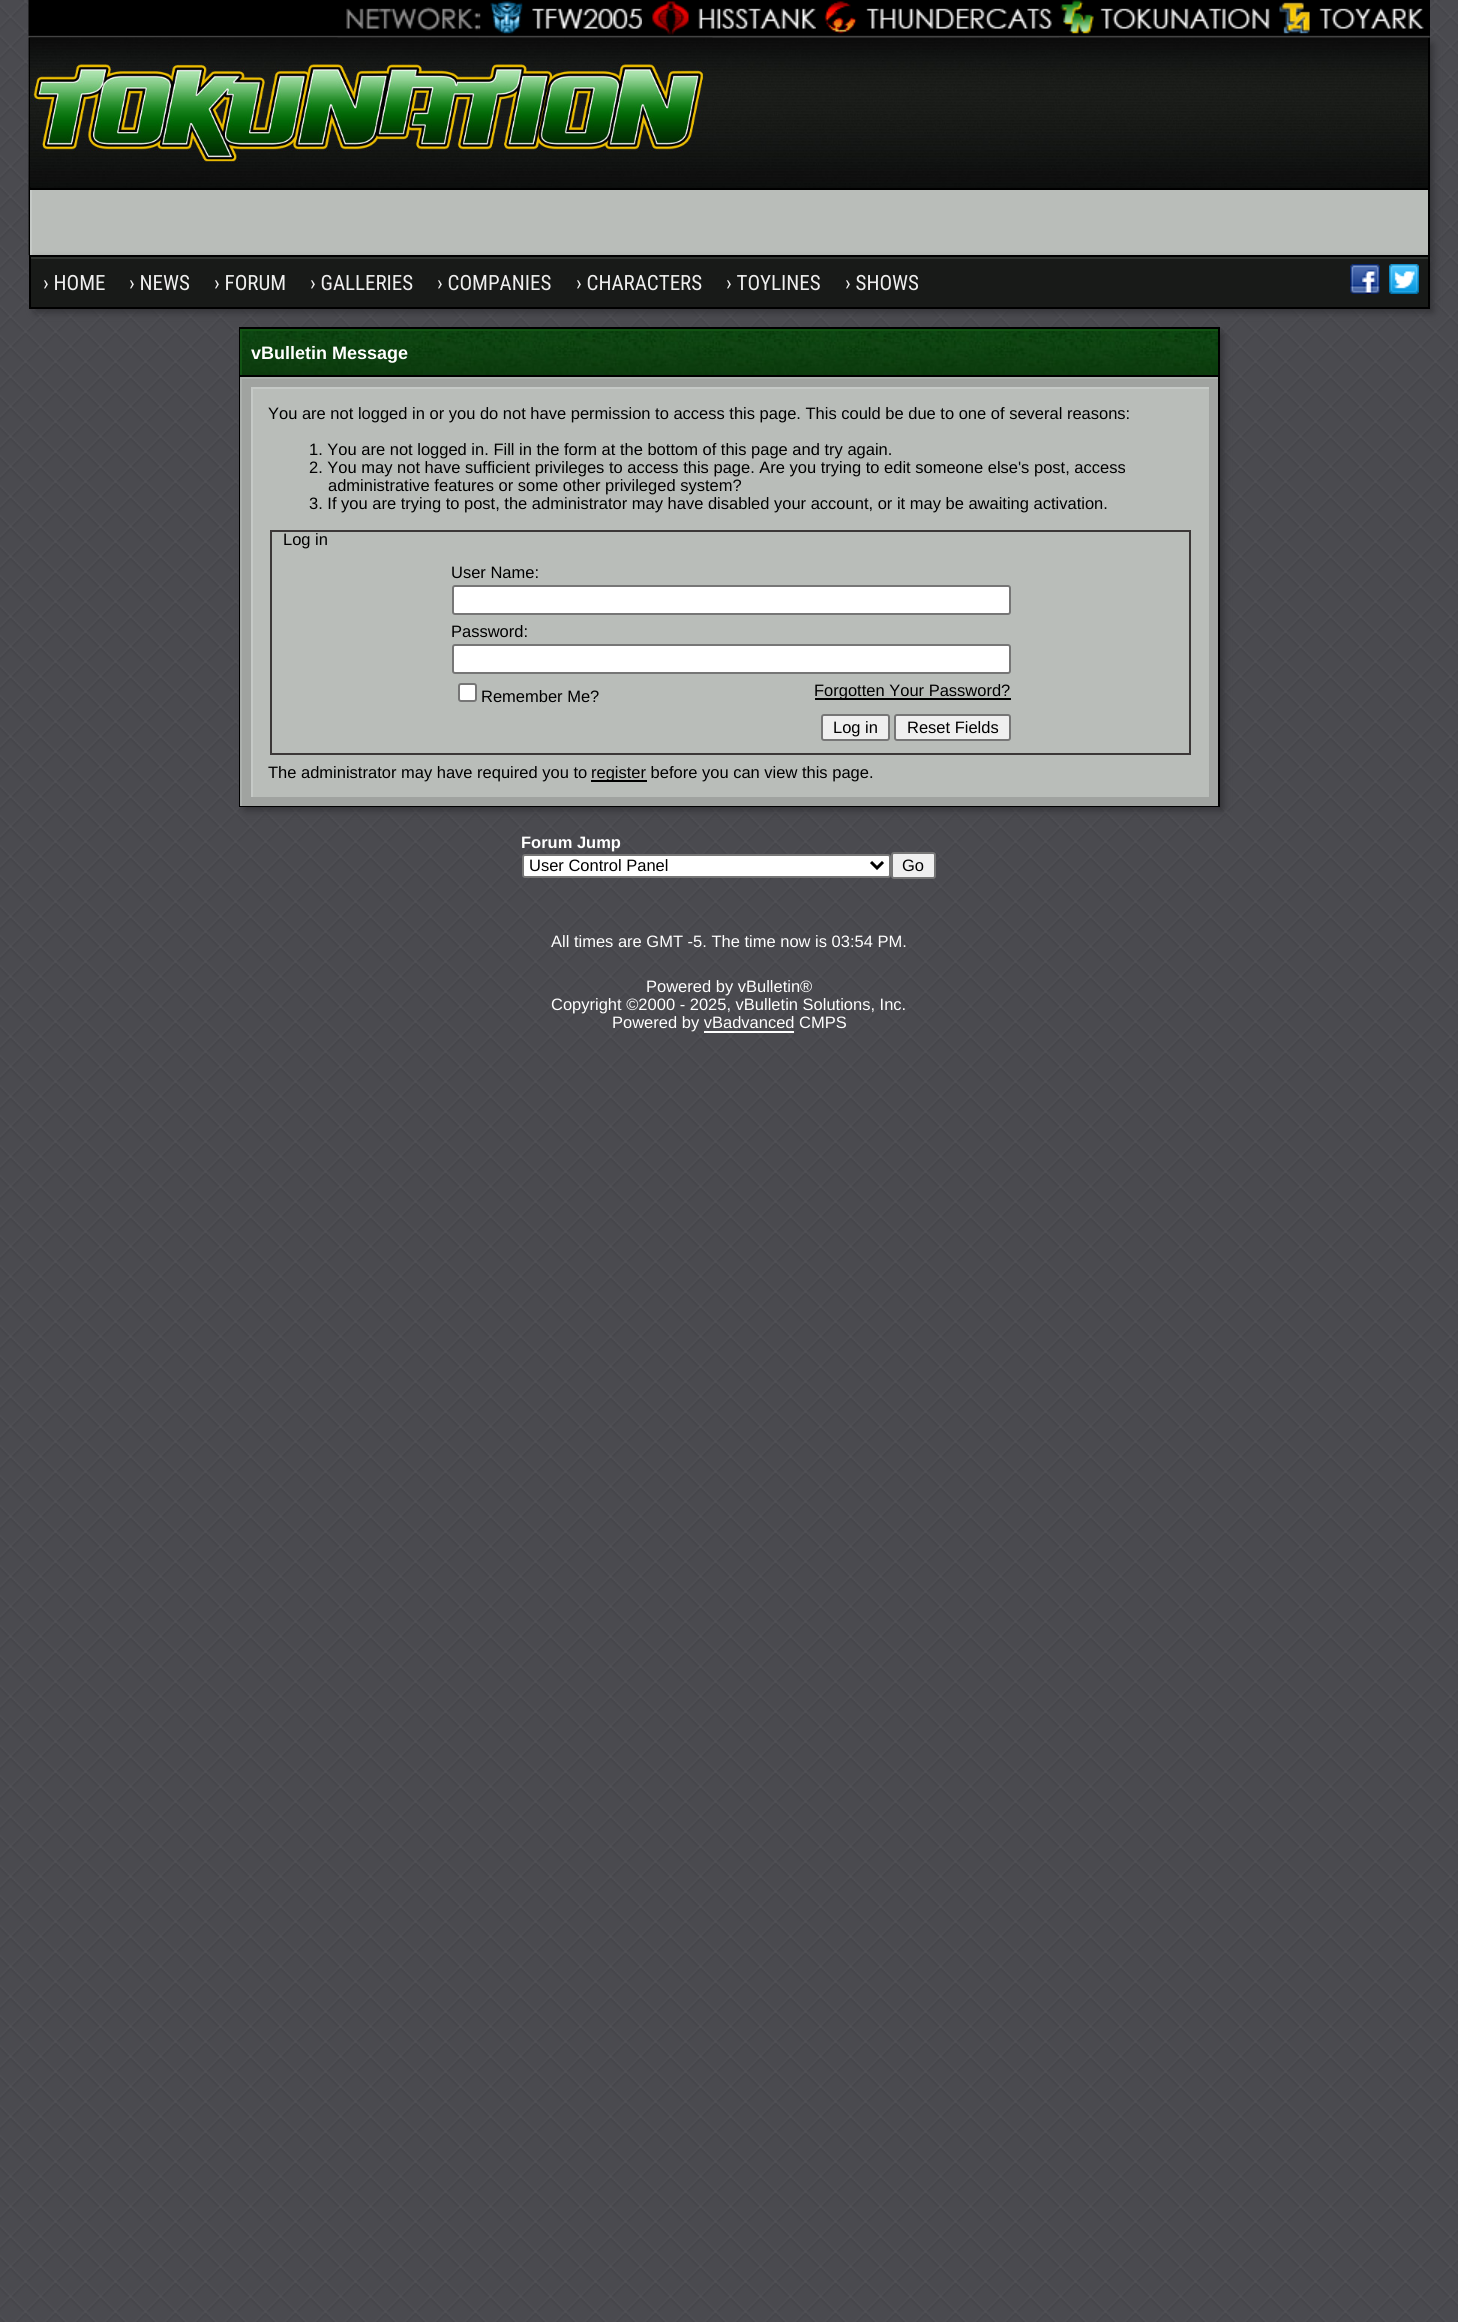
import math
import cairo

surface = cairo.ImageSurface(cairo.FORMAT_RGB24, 1458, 2322)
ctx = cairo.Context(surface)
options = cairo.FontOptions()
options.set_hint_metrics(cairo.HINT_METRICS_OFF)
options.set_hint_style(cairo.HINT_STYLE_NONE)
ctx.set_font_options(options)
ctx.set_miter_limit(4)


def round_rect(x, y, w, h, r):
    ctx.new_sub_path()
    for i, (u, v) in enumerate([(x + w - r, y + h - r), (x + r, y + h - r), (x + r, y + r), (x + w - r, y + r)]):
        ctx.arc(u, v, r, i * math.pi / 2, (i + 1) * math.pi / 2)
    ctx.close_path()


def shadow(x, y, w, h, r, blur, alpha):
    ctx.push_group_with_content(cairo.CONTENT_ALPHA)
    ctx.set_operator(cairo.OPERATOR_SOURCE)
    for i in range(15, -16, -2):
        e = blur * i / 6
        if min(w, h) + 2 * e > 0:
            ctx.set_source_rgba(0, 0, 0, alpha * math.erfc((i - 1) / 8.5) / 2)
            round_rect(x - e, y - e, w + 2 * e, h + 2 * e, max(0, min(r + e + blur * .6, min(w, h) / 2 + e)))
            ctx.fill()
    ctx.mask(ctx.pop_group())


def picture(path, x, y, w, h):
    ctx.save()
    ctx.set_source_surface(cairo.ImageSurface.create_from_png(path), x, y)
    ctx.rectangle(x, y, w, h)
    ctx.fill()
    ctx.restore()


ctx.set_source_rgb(1, 1, 1)
ctx.paint()
picture("img1.png", 0, 0, 1458, 2322)
ctx.set_source_rgb(0, 0, 0)
ctx.rectangle(29, 0, 1401, 38)
ctx.fill()
picture("img2.png", 28, 0, 1402, 38)
picture("img3.png", 337, 0, 1093, 38)
picture("img4.png", 478, 1, 164, 37)
picture("img5.png", 642, 1, 174, 37)
picture("img6.png", 816, 1, 243, 37)
ctx.set_source_rgb(0.196, 0.196, 0.212)
shadow(35, 44, 1398, 214, 0, 4, 1)
picture("img7.png", 28, 37, 1402, 218)
ctx.set_source_rgb(0, 0, 0)
ctx.rectangle(1428, 38, 2, 217)
ctx.fill()
ctx.rectangle(29, 38, 2, 217)
ctx.fill()
picture("img8.png", 30, 37, 683, 151)
ctx.set_source_rgb(0.725, 0.741, 0.725)
ctx.rectangle(32, 190, 1396, 65)
ctx.fill()
ctx.save()
ctx.rectangle(30, 189, 1398, 66)
ctx.clip()
ctx.set_source_rgb(0.773, 0.788, 0.776)
ctx.set_fill_rule(cairo.FILL_RULE_EVEN_ODD)
ctx.new_path()
ctx.move_to(-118, 40)
ctx.line_to(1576, 40)
ctx.line_to(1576, 404)
ctx.line_to(-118, 404)
ctx.close_path()
ctx.move_to(32, 190)
ctx.line_to(1430, 190)
ctx.line_to(1430, 256)
ctx.line_to(32, 256)
ctx.close_path()
ctx.fill()
ctx.restore()
ctx.set_source_rgb(0, 0, 0)
ctx.rectangle(30, 188, 1398, 2)
ctx.fill()
ctx.set_source_rgb(0.196, 0.196, 0.212)
shadow(35, 261, 1398, 51, 0, 4, 1)
ctx.set_source_rgb(0.094, 0.102, 0.094)
ctx.rectangle(31, 259, 1397, 48)
ctx.fill()
ctx.set_source_rgb(0.184, 0.2, 0.184)
ctx.rectangle(30, 257, 1398, 2)
ctx.fill()
ctx.rectangle(30, 256, 1399, 52)
ctx.set_source_rgb(0, 0, 0)
ctx.stroke()
ctx.select_font_face("Roboto Condensed")
ctx.set_font_size(21)
ctx.set_source_rgb(0.933, 0.933, 0.933)
ctx.move_to(43, 290)
ctx.show_text("› HOME")
ctx.move_to(129, 290)
ctx.show_text("› NEWS")
ctx.move_to(214, 290)
ctx.show_text("› FORUM")
ctx.move_to(310, 290)
ctx.show_text("› GALLERIES")
ctx.move_to(437, 290)
ctx.show_text("› COMPANIES")
ctx.move_to(576, 290)
ctx.show_text("› CHARACTERS")
ctx.move_to(726, 290)
ctx.show_text("› TOYLINES")
ctx.move_to(845, 290)
ctx.show_text("› SHOWS")
picture("img9.png", 1350, 264, 30, 30)
picture("img10.png", 1389, 264, 30, 30)
ctx.set_source_rgb(0.196, 0.196, 0.212)
shadow(245, 333, 978, 477, 0, 4, 1)
ctx.set_source_rgb(0, 0, 0)
ctx.rectangle(239, 327, 981, 480)
ctx.fill()
picture("img11.png", 242, 331, 976, 44)
ctx.set_source_rgb(0.067, 0.329, 0.078)
ctx.rectangle(240, 329, 978, 2)
ctx.fill()
ctx.rectangle(240, 329, 2, 46)
ctx.fill()
ctx.select_font_face("Liberation Sans", cairo.FONT_SLANT_NORMAL, cairo.FONT_WEIGHT_BOLD)
ctx.set_font_size(18)
ctx.set_source_rgb(1, 1, 1)
ctx.move_to(251, 359)
ctx.show_text("vBulletin Message")
ctx.set_source_rgb(0.627, 0.639, 0.627)
ctx.rectangle(242, 379, 976, 427)
ctx.fill()
ctx.set_source_rgb(0.675, 0.69, 0.678)
ctx.rectangle(240, 377, 978, 2)
ctx.fill()
ctx.rectangle(240, 377, 2, 429)
ctx.fill()
ctx.set_source_rgb(0.725, 0.741, 0.725)
ctx.rectangle(253, 389, 956, 408)
ctx.fill()
ctx.set_source_rgb(0.773, 0.788, 0.776)
ctx.rectangle(251, 387, 958, 2)
ctx.fill()
ctx.rectangle(251, 387, 2, 410)
ctx.fill()
ctx.select_font_face("Liberation Sans")
ctx.set_font_size(16.5)
ctx.set_source_rgb(0, 0, 0)
ctx.move_to(268, 419)
ctx.show_text("You are not logged in or you do not have permission to access this page. This could be due to one of several reasons:")
ctx.move_to(309, 455)
ctx.show_text("1. You are not logged in. Fill in the form at the bottom of this page and try again.")
ctx.move_to(309, 473)
ctx.show_text("2. You may not have sufficient privileges to access this page. Are you trying to edit someone else's post, access")
ctx.move_to(328, 491)
ctx.show_text("administrative features or some other privileged system?")
ctx.move_to(309, 509)
ctx.show_text("3. If you are trying to post, the administrator may have disabled your account, or it may be awaiting activation.")
ctx.rectangle(271, 531, 919, 223)
ctx.set_source_rgb(0.231, 0.216, 0.216)
ctx.stroke()
ctx.set_source_rgb(0, 0, 0)
ctx.move_to(283, 545)
ctx.show_text("Log in")
ctx.move_to(451, 578)
ctx.show_text("User Name:")
ctx.set_source_rgb(1, 1, 1)
round_rect(453, 586, 557, 28, 2)
ctx.fill_preserve()
ctx.set_source_rgb(0.463, 0.463, 0.463)
ctx.stroke()
ctx.set_source_rgb(0, 0, 0)
ctx.move_to(451, 637)
ctx.show_text("Password:")
ctx.set_source_rgb(1, 1, 1)
round_rect(453, 645, 557, 28, 2)
ctx.fill_preserve()
ctx.set_source_rgb(0.463, 0.463, 0.463)
ctx.stroke()
ctx.set_source_rgb(1, 1, 1)
round_rect(459, 684, 17, 17, 2)
ctx.fill_preserve()
ctx.set_source_rgb(0.463, 0.463, 0.463)
ctx.stroke()
ctx.set_source_rgb(0, 0, 0)
ctx.move_to(481, 702)
ctx.show_text("Remember Me?")
ctx.rectangle(815, 698, 196, 2)
ctx.fill()
ctx.move_to(814, 696)
ctx.show_text("Forgotten Your Password?")
ctx.set_source_rgb(0.937, 0.937, 0.937)
round_rect(822, 715, 67, 25, 2)
ctx.fill_preserve()
ctx.set_source_rgb(0.463, 0.463, 0.463)
ctx.stroke()
ctx.set_source_rgb(0, 0, 0)
ctx.move_to(833, 733)
ctx.show_text("Log in")
ctx.set_source_rgb(0.937, 0.937, 0.937)
round_rect(895, 715, 115, 25, 2)
ctx.fill_preserve()
ctx.set_source_rgb(0.463, 0.463, 0.463)
ctx.stroke()
ctx.set_source_rgb(0, 0, 0)
ctx.move_to(907, 733)
ctx.show_text("Reset Fields")
ctx.move_to(268, 778)
ctx.show_text("The administrator may have required you to")
ctx.rectangle(591, 780, 56, 2)
ctx.fill()
ctx.move_to(591, 778)
ctx.show_text("register before you can view this page.")
ctx.select_font_face("Liberation Sans", cairo.FONT_SLANT_NORMAL, cairo.FONT_WEIGHT_BOLD)
ctx.set_source_rgb(1, 1, 1)
ctx.move_to(521, 848)
ctx.show_text("Forum Jump")
round_rect(523, 855, 367, 22, 2)
ctx.fill_preserve()
ctx.set_source_rgb(0.463, 0.463, 0.463)
ctx.stroke()
ctx.new_path()
ctx.move_to(871, 862)
ctx.line_to(877, 868)
ctx.line_to(883, 862)
ctx.set_source_rgb(0, 0, 0)
ctx.set_line_width(3)
ctx.stroke()
ctx.select_font_face("Liberation Sans")
ctx.move_to(529, 871)
ctx.show_text("User Control Panel")
ctx.set_source_rgb(0.937, 0.937, 0.937)
round_rect(892, 853, 43, 25, 2)
ctx.fill_preserve()
ctx.set_source_rgb(0.463, 0.463, 0.463)
ctx.set_line_width(2)
ctx.stroke()
ctx.set_source_rgb(0, 0, 0)
ctx.move_to(902, 871)
ctx.show_text("Go")
ctx.set_source_rgb(1, 1, 1)
ctx.move_to(551, 947)
ctx.show_text("All times are GMT -5. The time now is 03:54 PM.")
ctx.move_to(646, 992)
ctx.show_text("Powered by vBulletin®")
ctx.move_to(551, 1010)
ctx.show_text("Copyright ©2000 - 2025, vBulletin Solutions, Inc.")
ctx.move_to(612, 1028)
ctx.show_text("Powered by vBadvanced CMPS")
ctx.rectangle(704, 1031, 90, 2)
ctx.fill()
surface.write_to_png("page.png")
